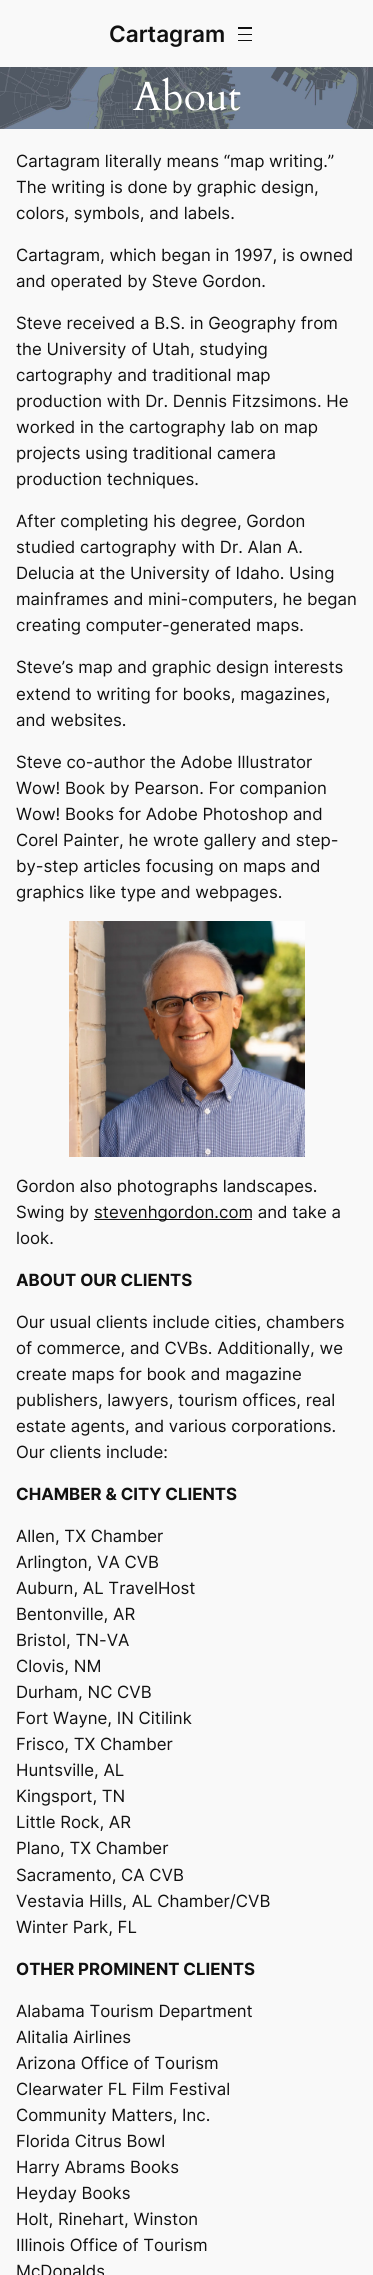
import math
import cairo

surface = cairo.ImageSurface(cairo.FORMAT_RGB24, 373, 2275)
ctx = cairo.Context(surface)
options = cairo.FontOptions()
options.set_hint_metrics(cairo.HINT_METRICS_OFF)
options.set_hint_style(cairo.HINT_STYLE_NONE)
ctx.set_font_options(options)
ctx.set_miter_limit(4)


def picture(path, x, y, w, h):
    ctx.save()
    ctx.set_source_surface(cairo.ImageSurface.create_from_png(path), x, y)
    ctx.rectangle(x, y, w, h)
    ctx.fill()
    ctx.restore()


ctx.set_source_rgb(0.976, 0.976, 0.976)
ctx.paint()
ctx.select_font_face("Inter SemiBold")
ctx.set_font_size(22.5)
ctx.set_source_rgb(0.067, 0.067, 0.067)
ctx.move_to(109, 42)
ctx.show_text("Cartagram")
ctx.rectangle(238, 27, 14, 2)
ctx.fill()
ctx.rectangle(238, 34, 14, 1)
ctx.fill()
ctx.rectangle(238, 40, 14, 1)
ctx.fill()
picture("img1.png", 0, 67, 373, 62)
picture("img2.png", 133, 77, 108, 34)
ctx.select_font_face("Inter")
ctx.set_font_size(16.8)
ctx.move_to(16, 167)
ctx.show_text("Cartagram literally means “map writing.”")
ctx.move_to(16, 193)
ctx.show_text("The writing is done by graphic design,")
ctx.move_to(16, 219)
ctx.show_text("colors, symbols, and labels.")
ctx.move_to(16, 261)
ctx.show_text("Cartagram, which began in 1997, is owned")
ctx.move_to(16, 287)
ctx.show_text("and operated by Steve Gordon.")
ctx.move_to(16, 329)
ctx.show_text("Steve received a B.S. in Geography from")
ctx.move_to(16, 355)
ctx.show_text("the University of Utah, studying")
ctx.move_to(16, 381)
ctx.show_text("cartography and traditional map")
ctx.move_to(16, 407)
ctx.show_text("production with Dr. Dennis Fitzsimons. He")
ctx.move_to(16, 433)
ctx.show_text("worked in the cartography lab on map")
ctx.move_to(16, 459)
ctx.show_text("projects using traditional camera")
ctx.move_to(16, 485)
ctx.show_text("production techniques.")
ctx.move_to(16, 527)
ctx.show_text("After completing his degree, Gordon")
ctx.move_to(16, 553)
ctx.show_text("studied cartography with Dr. Alan A.")
ctx.move_to(16, 579)
ctx.show_text("Delucia at the University of Idaho. Using")
ctx.move_to(16, 605)
ctx.show_text("mainframes and mini-computers, he began")
ctx.move_to(16, 631)
ctx.show_text("creating computer-generated maps.")
ctx.move_to(16, 673)
ctx.show_text("Steve’s map and graphic design interests")
ctx.move_to(16, 700)
ctx.show_text("extend to writing for books, magazines,")
ctx.move_to(16, 726)
ctx.show_text("and websites.")
ctx.move_to(16, 768)
ctx.show_text("Steve co-author the Adobe Illustrator")
ctx.move_to(16, 794)
ctx.show_text("Wow! Book by Pearson. For companion")
ctx.move_to(16, 820)
ctx.show_text("Wow! Books for Adobe Photoshop and")
ctx.move_to(16, 846)
ctx.show_text("Corel Painter, he wrote gallery and step-")
ctx.move_to(16, 872)
ctx.show_text("by-step articles focusing on maps and")
ctx.move_to(16, 898)
ctx.show_text("graphics like type and webpages.")
picture("img3.png", 69, 921, 236, 236)
ctx.move_to(16, 1192)
ctx.show_text("Gordon also photographs landscapes.")
ctx.move_to(16, 1218)
ctx.show_text("Swing by")
ctx.rectangle(94, 1219, 158, 1)
ctx.fill()
ctx.move_to(94, 1218)
ctx.show_text("stevenhgordon.com and take a")
ctx.move_to(16, 1244)
ctx.show_text("look.")
ctx.select_font_face("Inter", cairo.FONT_SLANT_NORMAL, cairo.FONT_WEIGHT_BOLD)
ctx.move_to(16, 1286)
ctx.show_text("ABOUT OUR CLIENTS")
ctx.select_font_face("Inter")
ctx.move_to(16, 1328)
ctx.show_text("Our usual clients include cities, chambers")
ctx.move_to(16, 1354)
ctx.show_text("of commerce, and CVBs. Additionally, we")
ctx.move_to(16, 1380)
ctx.show_text("create maps for book and magazine")
ctx.move_to(16, 1406)
ctx.show_text("publishers, lawyers, tourism offices, real")
ctx.move_to(16, 1432)
ctx.show_text("estate agents, and various corporations.")
ctx.move_to(16, 1458)
ctx.show_text("Our clients include:")
ctx.select_font_face("Inter", cairo.FONT_SLANT_NORMAL, cairo.FONT_WEIGHT_BOLD)
ctx.move_to(16, 1500)
ctx.show_text("CHAMBER & CITY CLIENTS")
ctx.select_font_face("Inter")
ctx.move_to(16, 1542)
ctx.show_text("Allen, TX Chamber")
ctx.move_to(16, 1568)
ctx.show_text("Arlington, VA CVB")
ctx.move_to(16, 1594)
ctx.show_text("Auburn, AL TravelHost")
ctx.move_to(16, 1620)
ctx.show_text("Bentonville, AR")
ctx.move_to(16, 1646)
ctx.show_text("Bristol, TN-VA")
ctx.move_to(16, 1672)
ctx.show_text("Clovis, NM")
ctx.move_to(16, 1698)
ctx.show_text("Durham, NC CVB")
ctx.move_to(16, 1724)
ctx.show_text("Fort Wayne, IN Citilink")
ctx.move_to(16, 1750)
ctx.show_text("Frisco, TX Chamber")
ctx.move_to(16, 1776)
ctx.show_text("Huntsville, AL")
ctx.move_to(16, 1802)
ctx.show_text("Kingsport, TN")
ctx.move_to(16, 1828)
ctx.show_text("Little Rock, AR")
ctx.move_to(16, 1854)
ctx.show_text("Plano, TX Chamber")
ctx.move_to(16, 1881)
ctx.show_text("Sacramento, CA CVB")
ctx.move_to(16, 1907)
ctx.show_text("Vestavia Hills, AL Chamber/CVB")
ctx.move_to(16, 1933)
ctx.show_text("Winter Park, FL")
ctx.select_font_face("Inter", cairo.FONT_SLANT_NORMAL, cairo.FONT_WEIGHT_BOLD)
ctx.move_to(16, 1975)
ctx.show_text("OTHER PROMINENT CLIENTS")
ctx.select_font_face("Inter")
ctx.move_to(16, 2017)
ctx.show_text("Alabama Tourism Department")
ctx.move_to(16, 2043)
ctx.show_text("Alitalia Airlines")
ctx.move_to(16, 2069)
ctx.show_text("Arizona Office of Tourism")
ctx.move_to(16, 2095)
ctx.show_text("Clearwater FL Film Festival")
ctx.move_to(16, 2121)
ctx.show_text("Community Matters, Inc.")
ctx.move_to(16, 2147)
ctx.show_text("Florida Citrus Bowl")
ctx.move_to(16, 2173)
ctx.show_text("Harry Abrams Books")
ctx.move_to(16, 2199)
ctx.show_text("Heyday Books")
ctx.move_to(16, 2225)
ctx.show_text("Holt, Rinehart, Winston")
ctx.move_to(16, 2251)
ctx.show_text("Illinois Office of Tourism")
ctx.move_to(16, 2277)
ctx.show_text("McDonalds")
surface.write_to_png("page.png")
